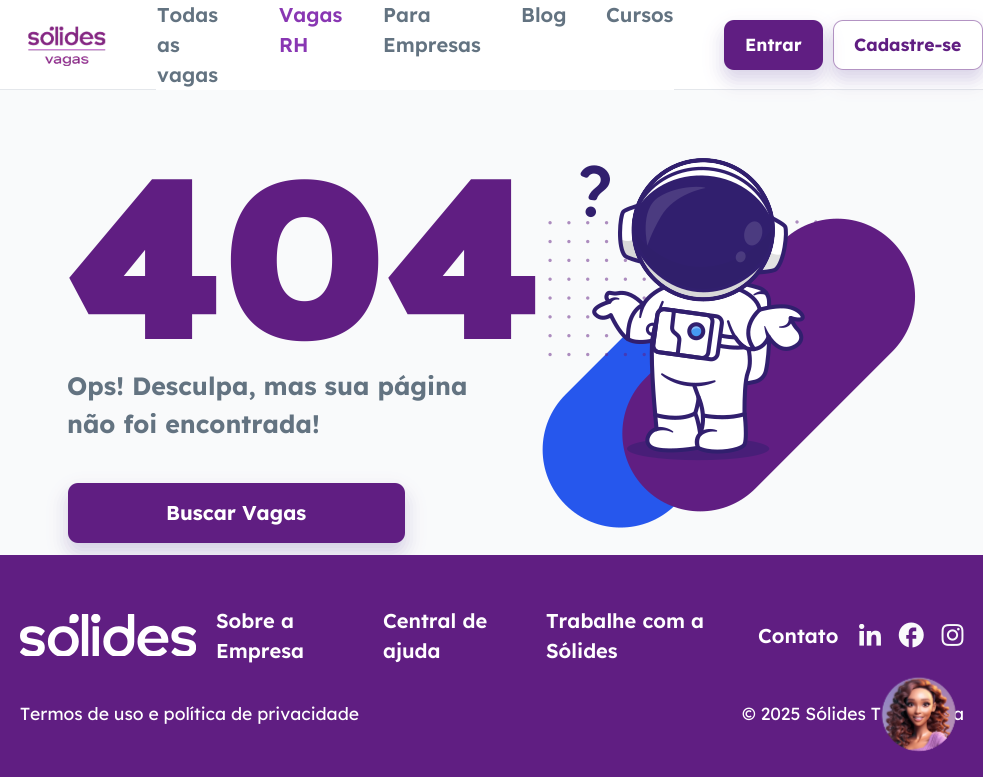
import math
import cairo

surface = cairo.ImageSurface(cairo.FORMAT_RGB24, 983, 777)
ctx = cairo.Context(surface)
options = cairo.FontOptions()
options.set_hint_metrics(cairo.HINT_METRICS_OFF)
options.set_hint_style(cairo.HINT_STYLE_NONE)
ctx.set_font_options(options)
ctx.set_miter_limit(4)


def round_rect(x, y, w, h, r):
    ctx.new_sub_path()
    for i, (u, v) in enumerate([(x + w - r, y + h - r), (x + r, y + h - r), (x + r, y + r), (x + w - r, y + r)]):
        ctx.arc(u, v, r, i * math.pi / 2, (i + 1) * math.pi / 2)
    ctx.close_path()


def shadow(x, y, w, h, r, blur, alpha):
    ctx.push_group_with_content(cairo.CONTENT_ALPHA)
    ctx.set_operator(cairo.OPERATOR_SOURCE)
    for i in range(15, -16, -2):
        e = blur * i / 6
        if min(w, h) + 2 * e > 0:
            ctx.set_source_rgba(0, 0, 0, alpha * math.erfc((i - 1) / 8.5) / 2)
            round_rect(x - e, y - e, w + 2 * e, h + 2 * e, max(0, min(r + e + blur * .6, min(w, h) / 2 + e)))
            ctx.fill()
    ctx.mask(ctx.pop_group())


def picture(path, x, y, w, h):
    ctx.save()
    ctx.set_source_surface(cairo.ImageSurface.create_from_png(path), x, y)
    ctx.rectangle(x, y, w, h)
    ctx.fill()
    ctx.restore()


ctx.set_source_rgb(0.976, 0.98, 0.984)
ctx.paint()
ctx.set_source_rgb(1, 1, 1)
ctx.rectangle(0, 0, 983, 89)
ctx.fill()
ctx.set_source_rgb(0.894, 0.906, 0.918)
ctx.rectangle(0, 89, 983, 1)
ctx.fill()
picture("img1.png", 28, 26, 78, 40)
ctx.set_source_rgb(1, 1, 1)
ctx.rectangle(156, 89, 518, 1)
ctx.fill()
ctx.select_font_face("Lexend SemiBold")
ctx.set_font_size(20)
ctx.set_source_rgb(0.388, 0.451, 0.506)
ctx.move_to(157, 22)
ctx.show_text("Todas")
ctx.move_to(157, 52)
ctx.show_text("as")
ctx.move_to(157, 82)
ctx.show_text("vagas")
ctx.set_source_rgb(0.537, 0.216, 0.702)
ctx.move_to(279, 22)
ctx.show_text("Vagas")
ctx.move_to(279, 52)
ctx.show_text("RH")
ctx.set_source_rgb(0.388, 0.451, 0.506)
ctx.move_to(383, 22)
ctx.show_text("Para")
ctx.move_to(383, 52)
ctx.show_text("Empresas")
ctx.move_to(521, 22)
ctx.show_text("Blog")
ctx.move_to(606, 22)
ctx.show_text("Cursos")
ctx.set_source_rgb(0.345, 0.247, 0.6)
shadow(724, 30, 99, 50, 10, 10, 0.24)
ctx.set_source_rgb(0.376, 0.118, 0.51)
round_rect(724, 20, 99, 50, 10)
ctx.fill()
ctx.select_font_face("Lexend", cairo.FONT_SLANT_NORMAL, cairo.FONT_WEIGHT_BOLD)
ctx.set_font_size(17.5)
ctx.set_source_rgb(1, 1, 1)
ctx.move_to(745, 51)
ctx.show_text("Entrar")
ctx.save()
ctx.set_fill_rule(cairo.FILL_RULE_EVEN_ODD)
ctx.new_path()
ctx.move_to(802, 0)
ctx.line_to(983, 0)
ctx.line_to(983, 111)
ctx.line_to(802, 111)
ctx.close_path()
ctx.move_to(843, 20)
ctx.line_to(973, 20)
ctx.curve_to(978.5, 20, 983, 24.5, 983, 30)
ctx.line_to(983, 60)
ctx.curve_to(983, 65.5, 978.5, 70, 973, 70)
ctx.line_to(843, 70)
ctx.curve_to(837.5, 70, 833, 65.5, 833, 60)
ctx.line_to(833, 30)
ctx.curve_to(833, 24.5, 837.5, 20, 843, 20)
ctx.close_path()
ctx.clip()
ctx.set_source_rgb(0.345, 0.247, 0.6)
shadow(833, 30, 150, 50, 10, 10, 0.24)
ctx.restore()
round_rect(833.5, 20.5, 149, 49, 9.5)
ctx.set_source_rgba(0.376, 0.118, 0.51, 0.48)
ctx.set_line_width(1)
ctx.stroke()
ctx.set_source_rgb(0.376, 0.118, 0.51)
ctx.move_to(854, 51)
ctx.show_text("Cadastre-se")
ctx.select_font_face("Lexend Black")
ctx.set_font_size(225)
ctx.move_to(67, 339)
ctx.show_text("404")
ctx.select_font_face("Lexend", cairo.FONT_SLANT_NORMAL, cairo.FONT_WEIGHT_BOLD)
ctx.set_font_size(25)
ctx.set_source_rgb(0.388, 0.451, 0.506)
ctx.move_to(67, 395)
ctx.show_text("Ops! Desculpa, mas sua página")
ctx.move_to(67, 433)
ctx.show_text("não foi encontrada!")
ctx.set_source_rgb(0.345, 0.247, 0.6)
shadow(68, 493, 337, 60, 10, 10, 0.24)
ctx.set_source_rgb(0.376, 0.118, 0.51)
round_rect(68, 483, 337, 60, 10)
ctx.fill()
ctx.set_font_size(20)
ctx.set_source_rgb(1, 1, 1)
ctx.move_to(166, 520)
ctx.show_text("Buscar Vagas")
picture("img2.png", 542, 158, 374, 370)
ctx.set_source_rgb(0.376, 0.118, 0.51)
ctx.rectangle(0, 555, 983, 222)
ctx.fill()
picture("img3.png", 20, 614, 176, 42)
ctx.select_font_face("Lexend SemiBold")
ctx.set_source_rgb(1, 1, 1)
ctx.move_to(216, 628)
ctx.show_text("Sobre a")
ctx.move_to(216, 658)
ctx.show_text("Empresa")
ctx.move_to(383, 628)
ctx.show_text("Central de")
ctx.move_to(383, 658)
ctx.show_text("ajuda")
ctx.move_to(546, 628)
ctx.show_text("Trabalhe com a")
ctx.move_to(546, 658)
ctx.show_text("Sólides")
ctx.move_to(758, 643)
ctx.show_text("Contato")
picture("img4.png", 859, 624, 22, 22)
picture("img5.png", 898, 622, 26, 26)
picture("img6.png", 941, 624, 23, 22)
ctx.select_font_face("Lexend")
ctx.set_font_size(17.5)
ctx.move_to(20, 720)
ctx.show_text("Termos de uso e política de privacidade")
ctx.move_to(742, 720)
ctx.show_text("© 2025 Sólides T")
ctx.move_to(953, 720)
ctx.show_text("a")
picture("img7.png", 881, 677, 75, 75)
surface.write_to_png("page.png")
